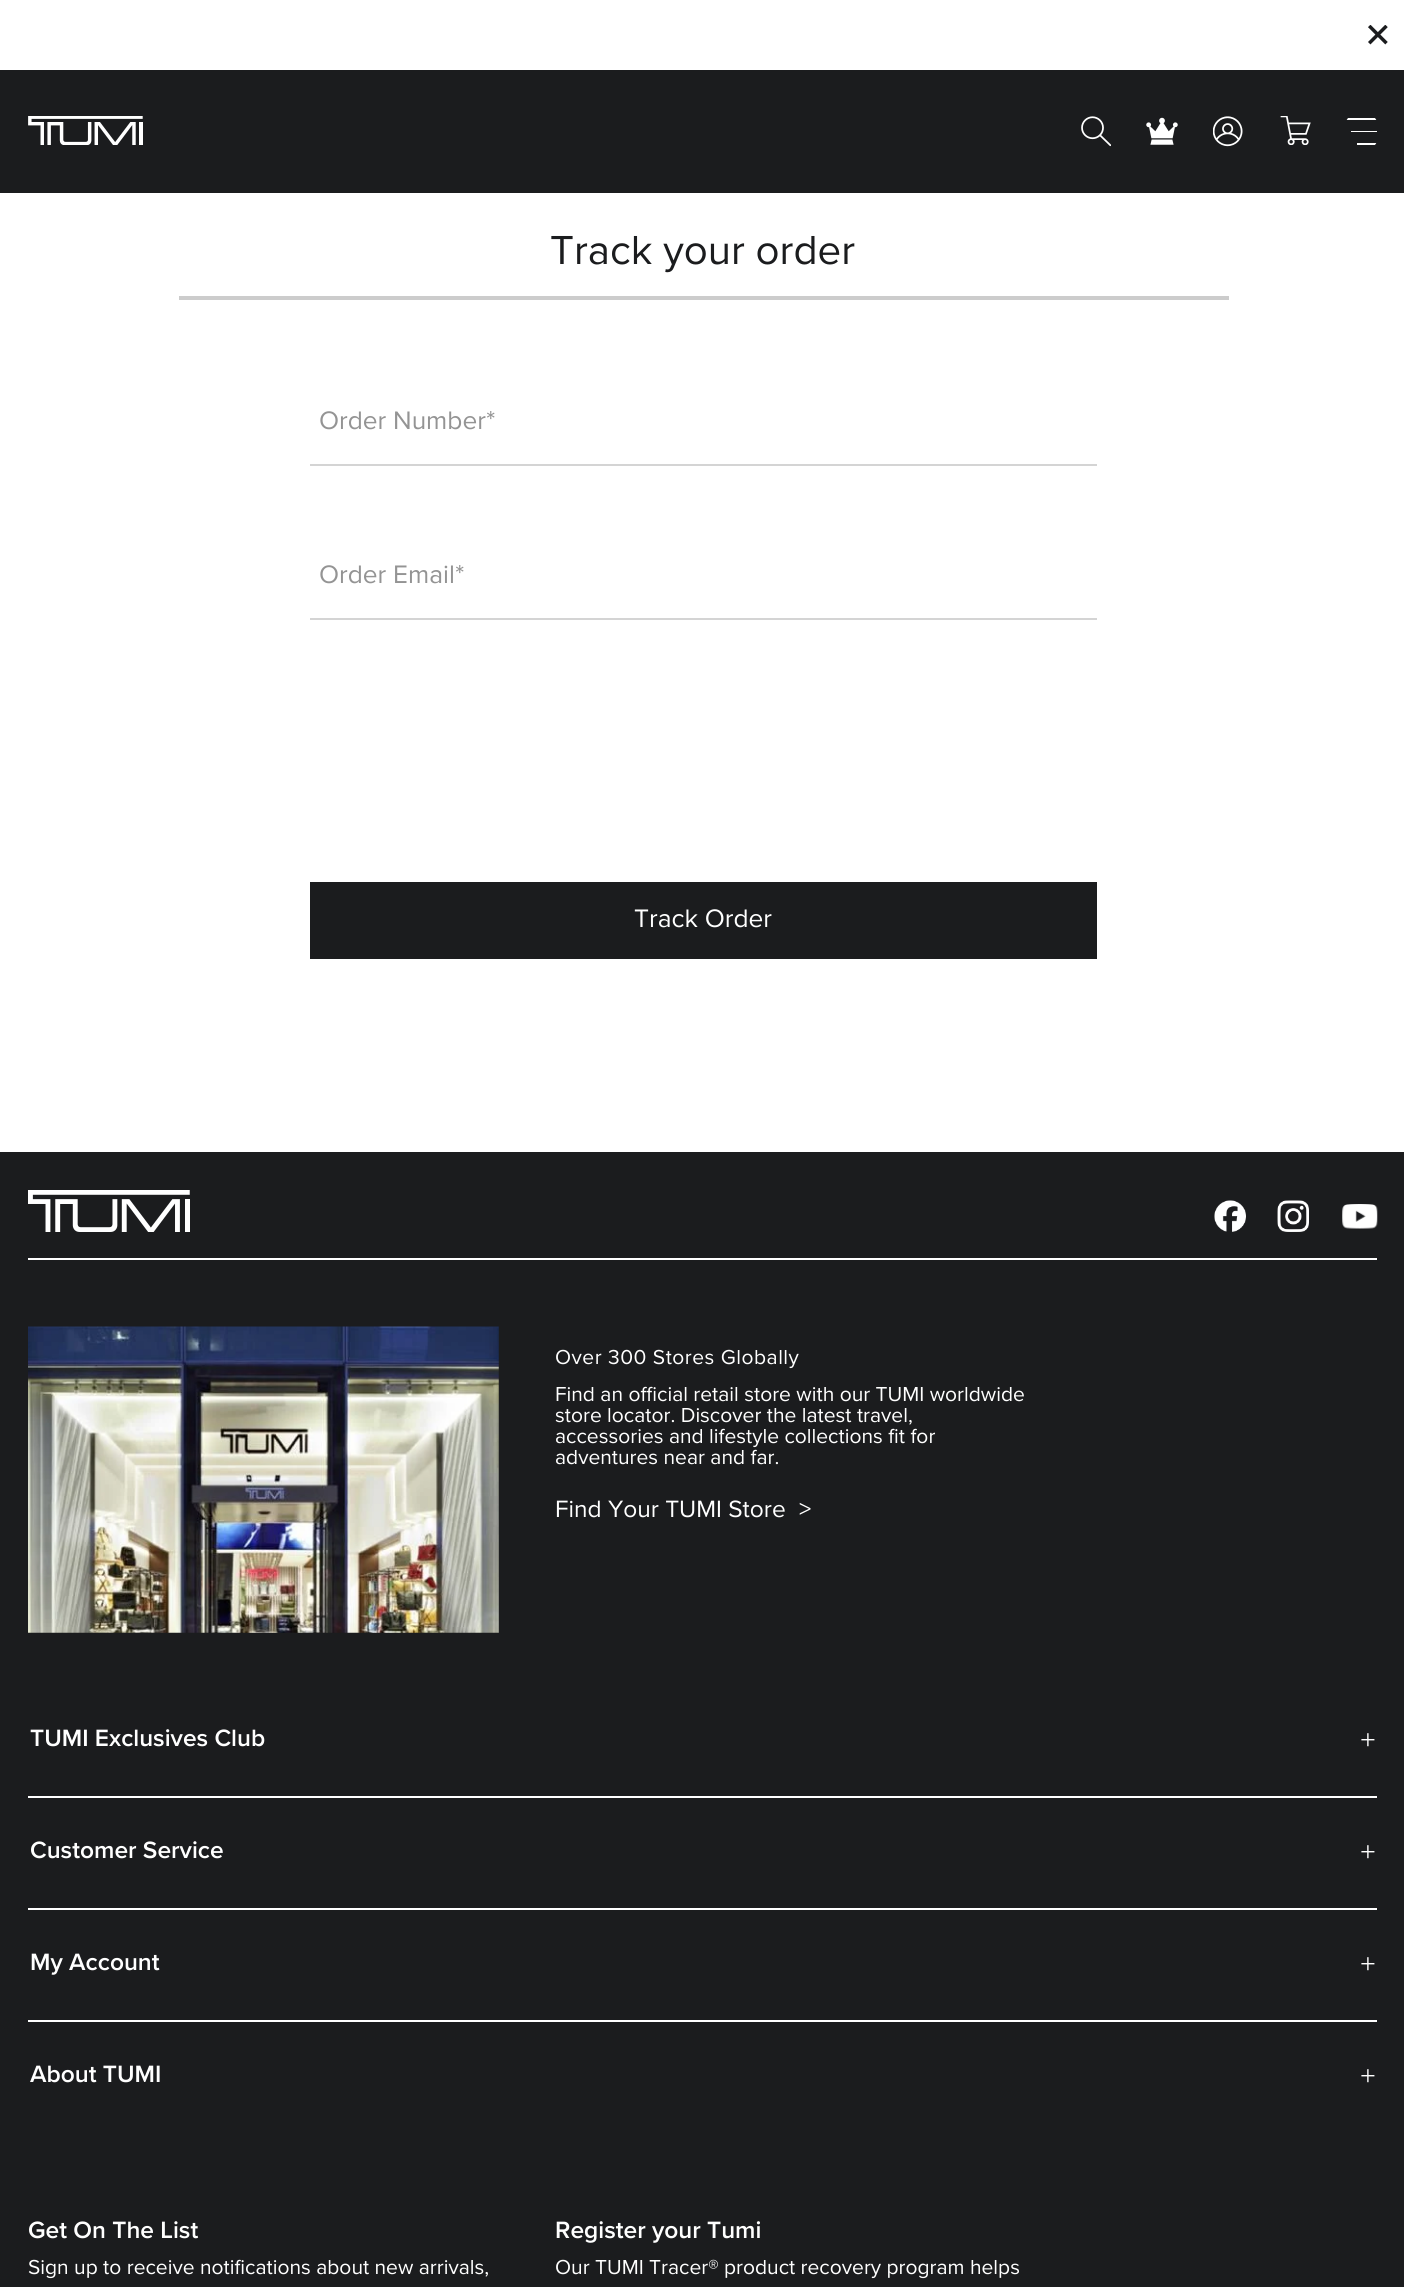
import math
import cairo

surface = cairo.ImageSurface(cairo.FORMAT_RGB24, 1404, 2287)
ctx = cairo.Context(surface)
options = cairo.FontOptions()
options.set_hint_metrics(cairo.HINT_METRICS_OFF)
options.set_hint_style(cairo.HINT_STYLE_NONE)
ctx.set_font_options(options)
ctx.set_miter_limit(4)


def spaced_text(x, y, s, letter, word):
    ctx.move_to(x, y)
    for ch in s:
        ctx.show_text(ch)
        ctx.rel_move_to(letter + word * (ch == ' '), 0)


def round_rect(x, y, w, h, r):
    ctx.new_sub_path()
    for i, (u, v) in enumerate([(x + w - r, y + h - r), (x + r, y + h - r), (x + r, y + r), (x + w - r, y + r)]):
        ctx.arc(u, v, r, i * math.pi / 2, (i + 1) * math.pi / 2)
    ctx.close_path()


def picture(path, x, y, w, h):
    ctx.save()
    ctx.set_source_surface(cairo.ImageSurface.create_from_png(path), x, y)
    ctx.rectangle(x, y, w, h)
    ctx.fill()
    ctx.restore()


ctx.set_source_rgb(1, 1, 1)
ctx.paint()
picture("img1.png", 1368, 25, 20, 20)
ctx.set_source_rgb(0.106, 0.11, 0.118)
ctx.rectangle(0, 70, 1404, 123)
ctx.fill()
picture("img2.png", 28, 116, 115, 29)
picture("img3.png", 1081, 116, 30, 31)
picture("img4.png", 1146, 117, 32, 28)
picture("img5.png", 1213, 116, 30, 31)
picture("img6.png", 1280, 116, 31, 29)
ctx.save()
round_rect(1346, 116, 31, 31, 7)
ctx.clip()
ctx.set_source_rgb(1, 1, 1)
ctx.rectangle(1346, 118, 31, 2)
ctx.fill()
ctx.restore()
ctx.set_source_rgb(1, 1, 1)
ctx.rectangle(1351, 131, 26, 1)
ctx.fill()
ctx.save()
round_rect(1346, 116, 31, 31, 7)
ctx.clip()
ctx.rectangle(1357, 143, 20, 2)
ctx.fill()
ctx.restore()
ctx.set_source_rgb(0.8, 0.8, 0.8)
ctx.rectangle(179, 296, 1050, 4)
ctx.fill()
ctx.select_font_face("Proxima Nova")
ctx.set_font_size(42)
ctx.set_source_rgb(0.106, 0.11, 0.118)
ctx.move_to(550, 264)
ctx.show_text("Track your order")
ctx.set_font_size(26.25)
ctx.set_source_rgb(0.58, 0.58, 0.58)
ctx.move_to(319, 429)
ctx.show_text("Order Number")
ctx.set_font_size(28)
ctx.move_to(486, 430)
ctx.show_text("*")
ctx.set_source_rgb(0.831, 0.831, 0.831)
ctx.rectangle(310, 464, 787, 2)
ctx.fill()
ctx.set_font_size(26.25)
ctx.set_source_rgb(0.58, 0.58, 0.58)
ctx.move_to(319, 583)
ctx.show_text("Order Email")
ctx.set_font_size(28)
ctx.move_to(455, 584)
ctx.show_text("*")
ctx.set_source_rgb(0.831, 0.831, 0.831)
ctx.rectangle(310, 618, 787, 2)
ctx.fill()
ctx.set_source_rgb(0.106, 0.11, 0.118)
ctx.rectangle(310, 882, 787, 77)
ctx.fill()
ctx.set_font_size(26.25)
ctx.set_source_rgb(1, 1, 1)
ctx.move_to(634, 927)
ctx.show_text("Track Order")
ctx.set_source_rgb(0.106, 0.11, 0.118)
ctx.rectangle(0, 1152, 1404, 1135)
ctx.fill()
ctx.set_source_rgb(1, 1, 1)
ctx.rectangle(28, 1258, 1349, 2)
ctx.fill()
picture("img7.png", 28, 1190, 162, 42)
picture("img8.png", 1214, 1200, 32, 32)
picture("img9.png", 1277, 1200, 32, 32)
picture("img10.png", 1342, 1204, 36, 25)
picture("img11.png", 28, 1326, 471, 307)
ctx.set_font_size(21)
spaced_text(555, 1364, "Over 300 Stores Globally", 0.5, 0)
ctx.move_to(555, 1401)
ctx.show_text("Find an official retail store with our TUMI worldwide")
ctx.move_to(555, 1422)
ctx.show_text("store locator. Discover the latest travel,")
ctx.move_to(555, 1443)
ctx.show_text("accessories and lifestyle collections fit for")
ctx.move_to(555, 1464)
ctx.show_text("adventures near and far.")
ctx.set_font_size(24.5)
ctx.move_to(555, 1517)
ctx.show_text("Find Your TUMI Store")
ctx.move_to(799, 1517)
ctx.show_text(">")
ctx.rectangle(28, 1796, 1349, 2)
ctx.fill()
ctx.select_font_face("Proxima Nova SemiBold")
ctx.move_to(30, 1746)
ctx.show_text("TUMI Exclusives Club")
ctx.select_font_face("Liberation Serif")
ctx.set_font_size(28)
ctx.move_to(1360, 1749)
ctx.show_text("+")
ctx.rectangle(28, 1908, 1349, 2)
ctx.fill()
ctx.select_font_face("Proxima Nova SemiBold")
ctx.set_font_size(24.5)
ctx.move_to(30, 1858)
ctx.show_text("Customer Service")
ctx.select_font_face("Liberation Serif")
ctx.set_font_size(28)
ctx.move_to(1360, 1861)
ctx.show_text("+")
ctx.rectangle(28, 2020, 1349, 2)
ctx.fill()
ctx.select_font_face("Proxima Nova SemiBold")
ctx.set_font_size(24.5)
ctx.move_to(30, 1970)
ctx.show_text("My Account")
ctx.select_font_face("Liberation Serif")
ctx.set_font_size(28)
ctx.move_to(1360, 1973)
ctx.show_text("+")
ctx.select_font_face("Proxima Nova SemiBold")
ctx.set_font_size(24.5)
ctx.move_to(30, 2082)
ctx.show_text("About TUMI")
ctx.select_font_face("Liberation Serif")
ctx.set_font_size(28)
ctx.move_to(1360, 2085)
ctx.show_text("+")
ctx.select_font_face("Proxima Nova SemiBold")
ctx.set_font_size(24.5)
ctx.move_to(28, 2238)
ctx.show_text("Get On The List")
ctx.select_font_face("Proxima Nova")
ctx.set_font_size(21)
ctx.move_to(28, 2274)
ctx.show_text("Sign up to receive notifications about new arrivals,")
ctx.select_font_face("Proxima Nova SemiBold")
ctx.set_font_size(24.5)
ctx.move_to(555, 2238)
ctx.show_text("Register your Tumi")
ctx.select_font_face("Proxima Nova")
ctx.set_font_size(21)
ctx.move_to(555, 2274)
ctx.show_text("Our TUMI Tracer® product recovery program helps")
surface.write_to_png("page.png")
